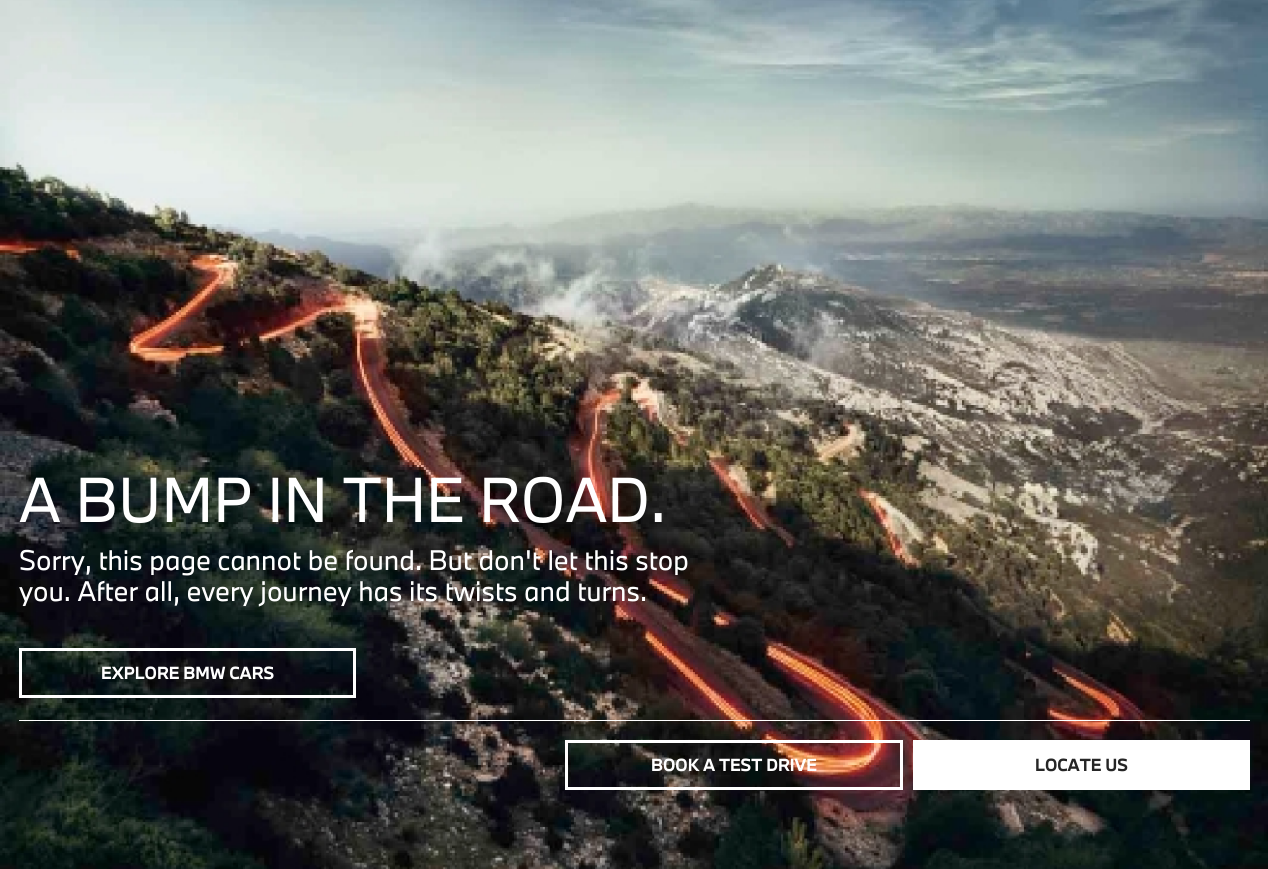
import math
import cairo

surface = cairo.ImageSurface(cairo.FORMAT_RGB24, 1268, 869)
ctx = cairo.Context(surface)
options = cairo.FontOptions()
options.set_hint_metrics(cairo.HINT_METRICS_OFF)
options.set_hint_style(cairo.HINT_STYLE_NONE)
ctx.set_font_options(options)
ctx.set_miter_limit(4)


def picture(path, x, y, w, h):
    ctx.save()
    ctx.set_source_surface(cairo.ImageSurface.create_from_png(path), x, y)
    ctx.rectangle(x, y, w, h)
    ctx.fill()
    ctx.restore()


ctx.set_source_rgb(1, 1, 1)
ctx.paint()
picture("img1.png", 0, 0, 1268, 869)
ctx.select_font_face("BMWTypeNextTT")
ctx.set_font_size(58.75)
ctx.set_source_rgb(1, 1, 1)
ctx.move_to(19, 522)
ctx.show_text("A BUMP IN THE ROAD.")
ctx.set_font_size(26.25)
ctx.move_to(19, 570)
ctx.show_text("Sorry, this page cannot be found. But don't let this stop")
ctx.move_to(19, 601)
ctx.show_text("you. After all, every journey has its twists and turns.")
ctx.rectangle(20.5, 649.5, 334, 47)
ctx.set_line_width(3)
ctx.stroke()
ctx.select_font_face("BMWTypeNextTT", cairo.FONT_SLANT_NORMAL, cairo.FONT_WEIGHT_BOLD)
ctx.set_font_size(16.25)
ctx.move_to(101, 679)
ctx.show_text("EXPLORE BMW CARS")
ctx.rectangle(19, 720, 1231, 1)
ctx.fill()
ctx.rectangle(566.5, 741.5, 335, 47)
ctx.stroke()
ctx.move_to(651, 771)
ctx.show_text("BOOK A TEST DRIVE")
ctx.rectangle(913, 740, 337, 50)
ctx.fill()
ctx.set_source_rgb(0.149, 0.149, 0.149)
ctx.move_to(1035, 771)
ctx.show_text("LOCATE US")
surface.write_to_png("page.png")
